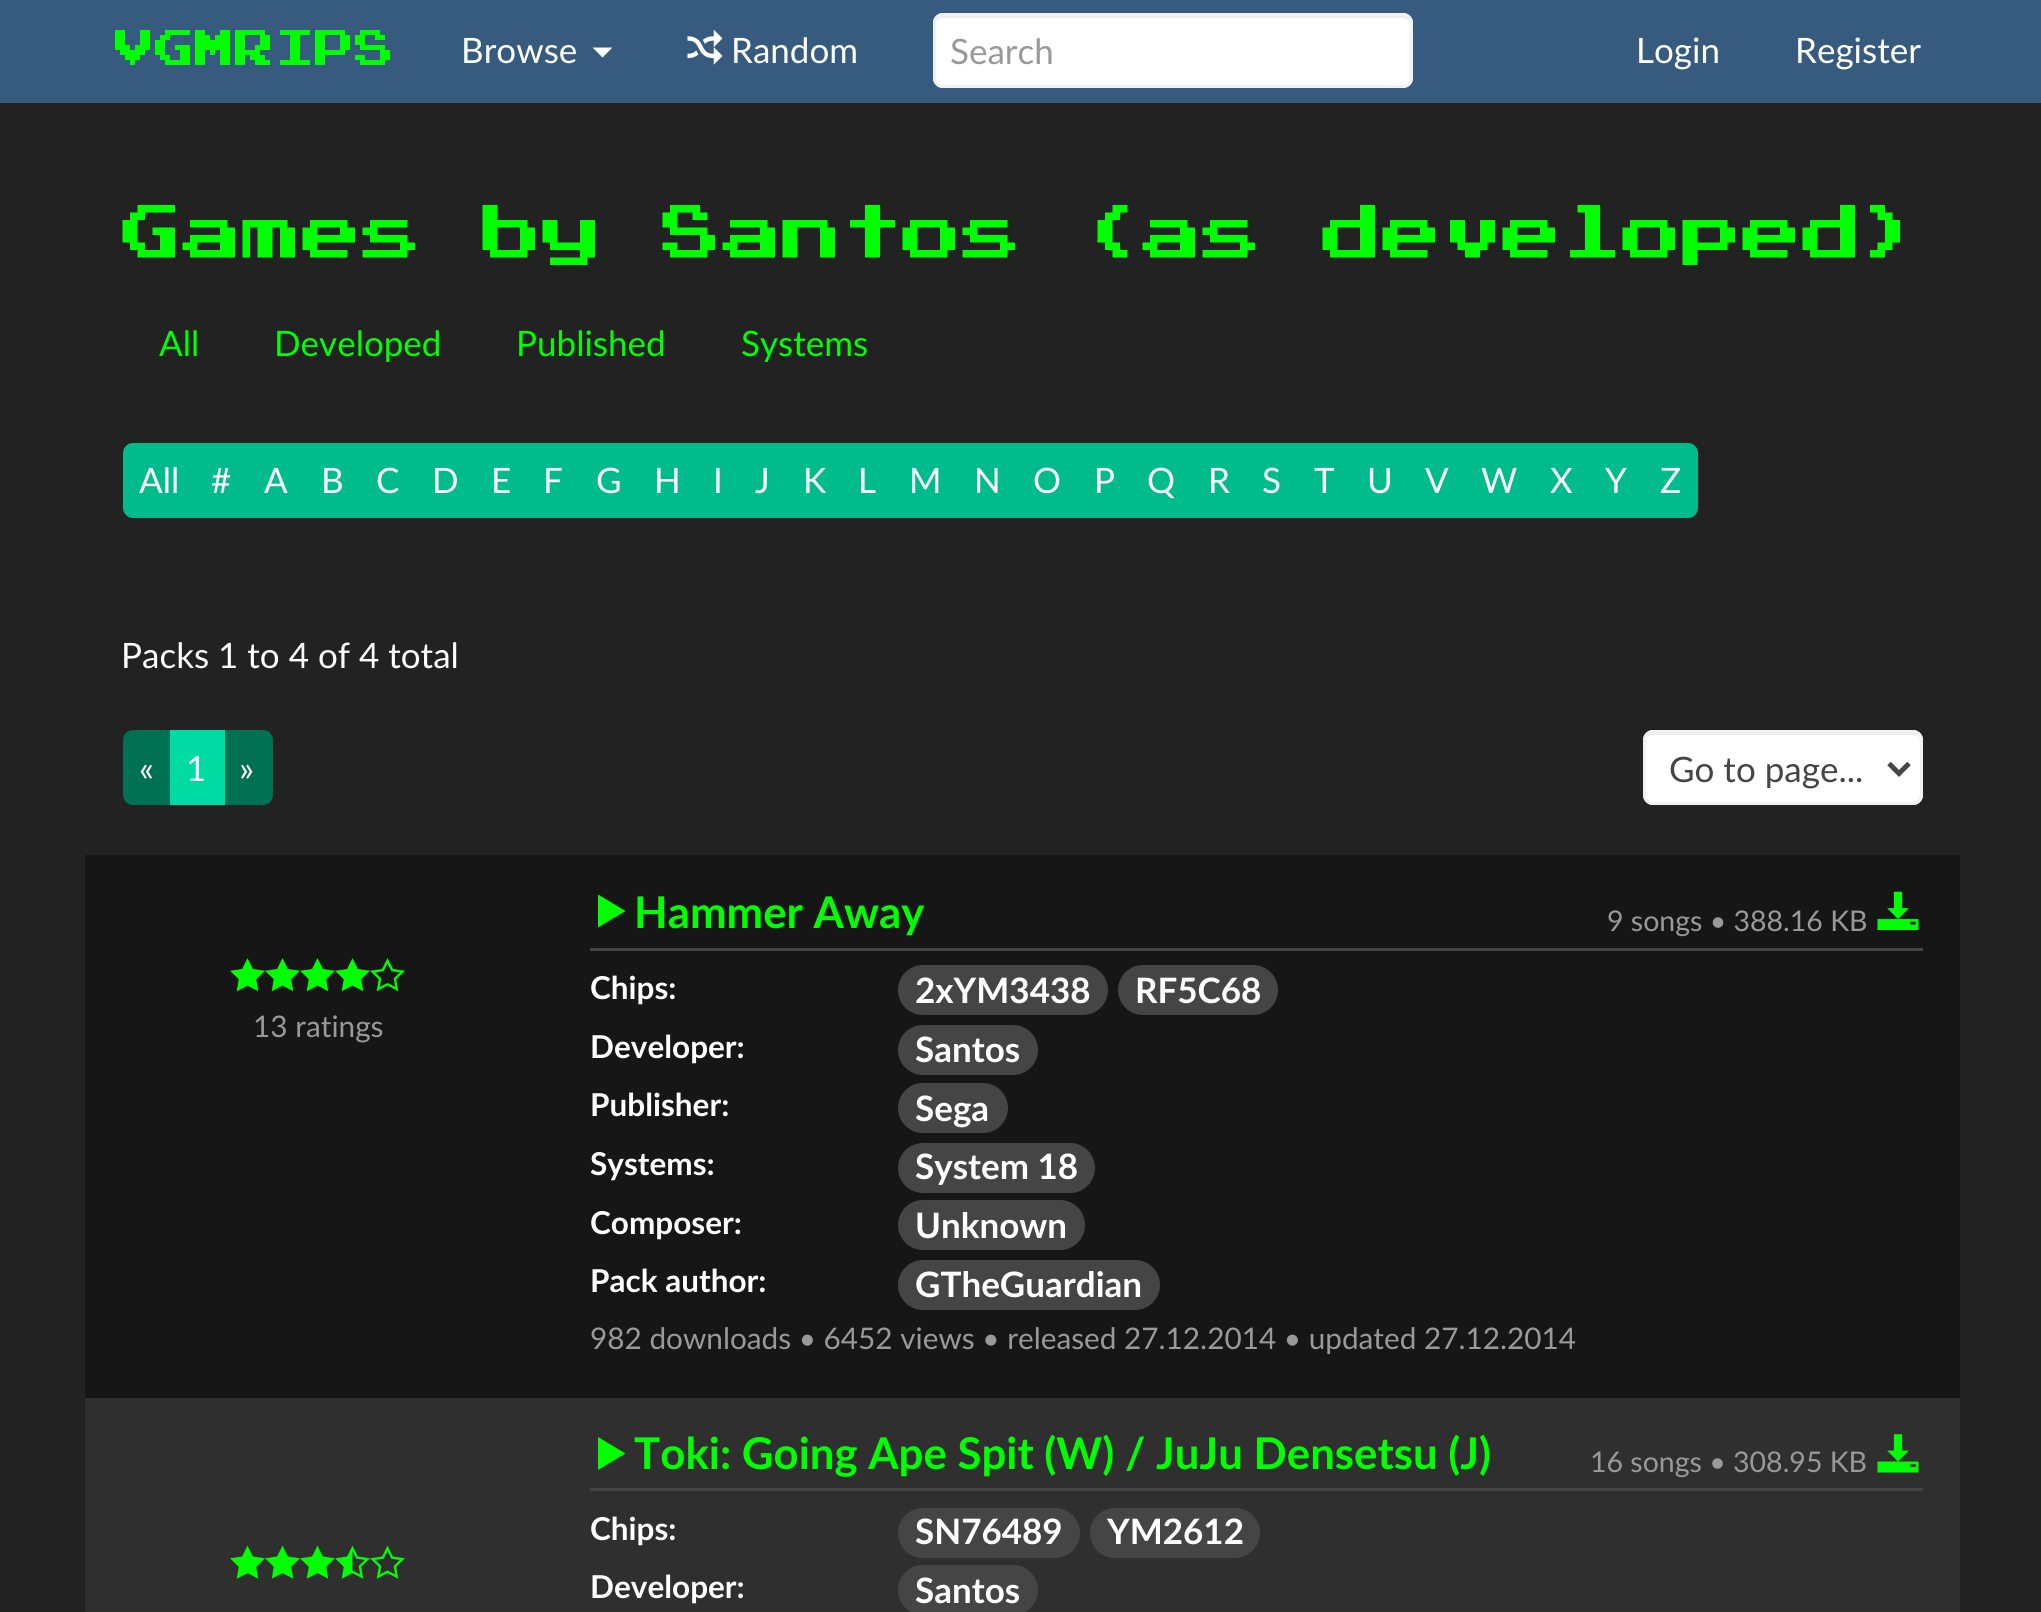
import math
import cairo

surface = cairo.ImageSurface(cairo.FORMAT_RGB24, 2041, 1612)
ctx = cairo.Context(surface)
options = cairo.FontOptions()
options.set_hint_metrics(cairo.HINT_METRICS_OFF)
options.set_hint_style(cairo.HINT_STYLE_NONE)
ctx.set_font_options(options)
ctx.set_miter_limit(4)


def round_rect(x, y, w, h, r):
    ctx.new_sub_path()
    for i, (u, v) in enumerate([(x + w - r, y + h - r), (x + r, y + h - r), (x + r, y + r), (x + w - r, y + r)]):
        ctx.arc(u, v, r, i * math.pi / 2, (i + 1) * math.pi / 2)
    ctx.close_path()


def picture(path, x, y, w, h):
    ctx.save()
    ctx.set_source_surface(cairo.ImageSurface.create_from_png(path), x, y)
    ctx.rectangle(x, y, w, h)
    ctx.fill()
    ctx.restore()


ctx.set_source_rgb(0.133, 0.133, 0.133)
ctx.paint()
ctx.set_source_rgb(0.216, 0.353, 0.498)
ctx.rectangle(0, 0, 2041, 103)
ctx.fill()
picture("img1.png", 115, 30, 275, 35)
ctx.select_font_face("Lato")
ctx.set_font_size(35)
ctx.set_source_rgb(1, 1, 1)
ctx.move_to(461, 63)
ctx.show_text("Browse")
ctx.new_path()
ctx.move_to(592.5, 47.5)
ctx.line_to(612.5, 47.5)
ctx.line_to(602.5, 57.5)
ctx.close_path()
ctx.fill()
picture("img2.png", 687, 29, 36, 36)
ctx.move_to(731, 63)
ctx.show_text("Random")
round_rect(933, 13, 480, 75, 10)
ctx.fill()
ctx.set_source_rgb(0.925, 0.925, 0.925)
ctx.new_path()
ctx.move_to(942, 18)
ctx.line_to(1402, 18)
ctx.curve_to(1407, 18, 1410, 21, 1410, 25)
ctx.curve_to(1410, 20, 1408, 15, 1402, 15)
ctx.line_to(943, 15)
ctx.curve_to(937, 15, 935, 20, 935, 25)
ctx.curve_to(935, 21, 938, 18, 942, 18)
ctx.close_path()
ctx.fill()
round_rect(934.5, 14.5, 477, 72, 8.5)
ctx.set_source_rgb(0.945, 0.945, 0.945)
ctx.set_line_width(3)
ctx.stroke()
ctx.set_source_rgb(0.6, 0.6, 0.6)
ctx.move_to(950, 64)
ctx.show_text("Search")
ctx.set_source_rgb(1, 1, 1)
ctx.move_to(1636, 63)
ctx.show_text("Login")
ctx.move_to(1795, 63)
ctx.show_text("Register")
picture("img3.png", 122, 205, 1778, 60)
ctx.set_source_rgb(0, 1, 0)
ctx.move_to(159, 356)
ctx.show_text("All")
ctx.move_to(274, 356)
ctx.show_text("Developed")
ctx.move_to(516, 356)
ctx.show_text("Published")
ctx.move_to(741, 356)
ctx.show_text("Systems")
ctx.set_source_rgb(0, 0.737, 0.549)
ctx.new_path()
ctx.move_to(133, 443)
ctx.line_to(198, 443)
ctx.line_to(198, 518)
ctx.line_to(133, 518)
ctx.curve_to(127.5, 518, 123, 513.5, 123, 508)
ctx.line_to(123, 453)
ctx.curve_to(123, 447.5, 127.5, 443, 133, 443)
ctx.close_path()
ctx.fill()
ctx.set_source_rgb(1, 1, 1)
ctx.move_to(139, 493)
ctx.show_text("All")
ctx.set_source_rgb(0, 0.737, 0.549)
ctx.rectangle(198, 443, 1445, 75)
ctx.fill()
ctx.set_source_rgb(1, 1, 1)
ctx.move_to(211, 493)
ctx.show_text("#")
ctx.move_to(264, 493)
ctx.show_text("A")
ctx.move_to(321, 493)
ctx.show_text("B")
ctx.move_to(376, 493)
ctx.show_text("C")
ctx.move_to(432, 493)
ctx.show_text("D")
ctx.move_to(491, 493)
ctx.show_text("E")
ctx.move_to(543, 493)
ctx.show_text("F")
ctx.move_to(596, 493)
ctx.show_text("G")
ctx.move_to(654, 493)
ctx.show_text("H")
ctx.move_to(713, 493)
ctx.show_text("I")
ctx.move_to(755, 493)
ctx.show_text("J")
ctx.move_to(803, 493)
ctx.show_text("K")
ctx.move_to(858, 493)
ctx.show_text("L")
ctx.move_to(909, 493)
ctx.show_text("M")
ctx.move_to(974, 493)
ctx.show_text("N")
ctx.move_to(1033, 493)
ctx.show_text("O")
ctx.move_to(1094, 493)
ctx.show_text("P")
ctx.move_to(1147, 493)
ctx.show_text("Q")
ctx.move_to(1208, 493)
ctx.show_text("R")
ctx.move_to(1262, 493)
ctx.show_text("S")
ctx.move_to(1314, 493)
ctx.show_text("T")
ctx.move_to(1367, 493)
ctx.show_text("U")
ctx.move_to(1425, 493)
ctx.show_text("V")
ctx.move_to(1481, 493)
ctx.show_text("W")
ctx.move_to(1550, 493)
ctx.show_text("X")
ctx.move_to(1605, 493)
ctx.show_text("Y")
ctx.set_source_rgb(0, 0.737, 0.549)
ctx.new_path()
ctx.move_to(1643, 443)
ctx.line_to(1688, 443)
ctx.curve_to(1693.5, 443, 1698, 447.5, 1698, 453)
ctx.line_to(1698, 508)
ctx.curve_to(1698, 513.5, 1693.5, 518, 1688, 518)
ctx.line_to(1643, 518)
ctx.close_path()
ctx.fill()
ctx.set_source_rgb(1, 1, 1)
ctx.move_to(1660, 493)
ctx.show_text("Z")
ctx.move_to(121, 668)
ctx.show_text("Packs 1 to 4 of 4 total")
ctx.set_source_rgb(0, 0.439, 0.325)
ctx.new_path()
ctx.move_to(133, 730)
ctx.line_to(173, 730)
ctx.line_to(173, 805)
ctx.line_to(133, 805)
ctx.curve_to(127.5, 805, 123, 800.5, 123, 795)
ctx.line_to(123, 740)
ctx.curve_to(123, 734.5, 127.5, 730, 133, 730)
ctx.close_path()
ctx.fill()
ctx.set_source_rgb(1, 1, 1)
ctx.move_to(139, 781)
ctx.show_text("«")
ctx.set_source_rgb(0, 0.439, 0.325)
ctx.new_path()
ctx.move_to(223, 730)
ctx.line_to(263, 730)
ctx.curve_to(268.5, 730, 273, 734.5, 273, 740)
ctx.line_to(273, 795)
ctx.curve_to(273, 800.5, 268.5, 805, 263, 805)
ctx.line_to(223, 805)
ctx.close_path()
ctx.fill()
ctx.set_source_rgb(0, 0.859, 0.639)
ctx.rectangle(170, 730, 55, 75)
ctx.fill()
ctx.set_source_rgb(1, 1, 1)
ctx.move_to(186, 781)
ctx.show_text("1")
ctx.move_to(239, 781)
ctx.show_text("»")
round_rect(1643, 730, 280, 75, 10)
ctx.fill()
ctx.set_source_rgb(0.925, 0.925, 0.925)
ctx.new_path()
ctx.move_to(1652, 735)
ctx.line_to(1912, 735)
ctx.curve_to(1917, 735, 1920, 738, 1920, 742)
ctx.line_to(1920, 741)
ctx.curve_to(1920, 737, 1916, 733, 1912, 733)
ctx.line_to(1653, 733)
ctx.curve_to(1649, 733, 1645, 737, 1645, 741)
ctx.line_to(1645, 742)
ctx.curve_to(1645, 738, 1648, 735, 1652, 735)
ctx.close_path()
ctx.fill()
round_rect(1644.5, 731.5, 277, 72, 8.5)
ctx.set_source_rgb(0.945, 0.945, 0.945)
ctx.stroke()
ctx.new_path()
ctx.move_to(1889, 763.5)
ctx.line_to(1899, 773.5)
ctx.line_to(1909, 763.5)
ctx.set_source_rgb(0.275, 0.271, 0.271)
ctx.set_line_width(5)
ctx.stroke()
ctx.move_to(1669, 782)
ctx.show_text("Go to page...")
ctx.set_source_rgb(0.086, 0.086, 0.086)
ctx.rectangle(85, 855, 1875, 543)
ctx.fill()
picture("img4.png", 230, 958, 175, 34)
ctx.set_font_size(29.75)
ctx.set_source_rgb(0.6, 0.6, 0.6)
ctx.move_to(253, 1037)
ctx.show_text("13 ratings")
ctx.set_source_rgb(0.275, 0.271, 0.271)
ctx.rectangle(590, 948, 1333, 3)
ctx.fill()
ctx.set_source_rgb(0, 1, 0)
ctx.new_path()
ctx.move_to(598, 894.5)
ctx.line_to(625.5, 911)
ctx.line_to(598, 927.5)
ctx.close_path()
ctx.fill()
ctx.select_font_face("Lato", cairo.FONT_SLANT_NORMAL, cairo.FONT_WEIGHT_BOLD)
ctx.set_font_size(43.75)
ctx.move_to(634, 928)
ctx.show_text("Hammer Away")
ctx.select_font_face("Lato")
ctx.set_font_size(28.5)
ctx.set_source_rgb(0.6, 0.6, 0.6)
ctx.move_to(1607, 931)
ctx.show_text("9 songs • 388.16 KB")
picture("img5.png", 1877, 891, 42, 39)
ctx.select_font_face("Lato", cairo.FONT_SLANT_NORMAL, cairo.FONT_WEIGHT_BOLD)
ctx.set_font_size(31.5)
ctx.set_source_rgb(1, 1, 1)
ctx.move_to(590, 999)
ctx.show_text("Chips:")
ctx.set_source_rgb(0.275, 0.271, 0.271)
round_rect(898, 965, 210, 50, 25)
ctx.fill()
ctx.set_font_size(35)
ctx.set_source_rgb(1, 1, 1)
ctx.move_to(915, 1003)
ctx.show_text("2xYM3438")
ctx.set_source_rgb(0.275, 0.271, 0.271)
round_rect(1118, 965, 160, 50, 25)
ctx.fill()
ctx.set_source_rgb(1, 1, 1)
ctx.move_to(1135, 1003)
ctx.show_text("RF5C68")
ctx.set_font_size(31.5)
ctx.move_to(590, 1058)
ctx.show_text("Developer:")
ctx.set_source_rgb(0.275, 0.271, 0.271)
round_rect(898, 1025, 140, 50, 25)
ctx.fill()
ctx.set_font_size(35)
ctx.set_source_rgb(1, 1, 1)
ctx.move_to(915, 1062)
ctx.show_text("Santos")
ctx.set_font_size(31.5)
ctx.move_to(590, 1116)
ctx.show_text("Publisher:")
ctx.set_source_rgb(0.275, 0.271, 0.271)
round_rect(898, 1083, 110, 50, 25)
ctx.fill()
ctx.set_font_size(35)
ctx.set_source_rgb(1, 1, 1)
ctx.move_to(915, 1121)
ctx.show_text("Sega")
ctx.set_font_size(31.5)
ctx.move_to(590, 1175)
ctx.show_text("Systems:")
ctx.set_source_rgb(0.275, 0.271, 0.271)
round_rect(898, 1143, 197, 50, 25)
ctx.fill()
ctx.set_font_size(35)
ctx.set_source_rgb(1, 1, 1)
ctx.move_to(915, 1179)
ctx.show_text("System 18")
ctx.set_font_size(31.5)
ctx.move_to(590, 1234)
ctx.show_text("Composer:")
ctx.set_source_rgb(0.275, 0.271, 0.271)
round_rect(898, 1200, 187, 50, 25)
ctx.fill()
ctx.set_font_size(35)
ctx.set_source_rgb(1, 1, 1)
ctx.move_to(915, 1238)
ctx.show_text("Unknown")
ctx.set_font_size(31.5)
ctx.move_to(590, 1292)
ctx.show_text("Pack author:")
ctx.set_source_rgb(0.275, 0.271, 0.271)
round_rect(898, 1260, 262, 50, 25)
ctx.fill()
ctx.set_font_size(35)
ctx.set_source_rgb(1, 1, 1)
ctx.move_to(915, 1297)
ctx.show_text("GTheGuardian")
ctx.select_font_face("Lato")
ctx.set_font_size(29.75)
ctx.set_source_rgb(0.6, 0.6, 0.6)
ctx.move_to(590, 1349)
ctx.show_text("982 downloads • 6452 views • released 27.12.2014 • updated 27.12.2014")
ctx.set_source_rgb(0.184, 0.184, 0.184)
ctx.rectangle(85, 1398, 1875, 214)
ctx.fill()
picture("img6.png", 230, 1545, 175, 34)
ctx.set_source_rgb(0.275, 0.271, 0.271)
ctx.rectangle(590, 1488, 1333, 3)
ctx.fill()
ctx.set_source_rgb(0, 1, 0)
ctx.new_path()
ctx.move_to(598, 1437)
ctx.line_to(625.5, 1453.5)
ctx.line_to(598, 1470)
ctx.close_path()
ctx.fill()
ctx.select_font_face("Lato", cairo.FONT_SLANT_NORMAL, cairo.FONT_WEIGHT_BOLD)
ctx.set_font_size(43.75)
ctx.move_to(634, 1469)
ctx.show_text("Toki: Going Ape Spit (W) / JuJu Densetsu (J)")
ctx.select_font_face("Lato")
ctx.set_font_size(28.5)
ctx.set_source_rgb(0.6, 0.6, 0.6)
ctx.move_to(1590, 1472)
ctx.show_text("16 songs • 308.95 KB")
picture("img7.png", 1877, 1434, 42, 39)
ctx.select_font_face("Lato", cairo.FONT_SLANT_NORMAL, cairo.FONT_WEIGHT_BOLD)
ctx.set_font_size(31.5)
ctx.set_source_rgb(1, 1, 1)
ctx.move_to(590, 1540)
ctx.show_text("Chips:")
ctx.set_source_rgb(0.275, 0.271, 0.271)
round_rect(898, 1508, 182, 50, 25)
ctx.fill()
ctx.set_font_size(35)
ctx.set_source_rgb(1, 1, 1)
ctx.move_to(915, 1544)
ctx.show_text("SN76489")
ctx.set_source_rgb(0.275, 0.271, 0.271)
round_rect(1090, 1508, 170, 50, 25)
ctx.fill()
ctx.set_source_rgb(1, 1, 1)
ctx.move_to(1107, 1544)
ctx.show_text("YM2612")
ctx.set_font_size(31.5)
ctx.move_to(590, 1598)
ctx.show_text("Developer:")
ctx.set_source_rgb(0.275, 0.271, 0.271)
round_rect(898, 1565, 140, 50, 25)
ctx.fill()
ctx.set_font_size(35)
ctx.set_source_rgb(1, 1, 1)
ctx.move_to(915, 1603)
ctx.show_text("Santos")
surface.write_to_png("page.png")
